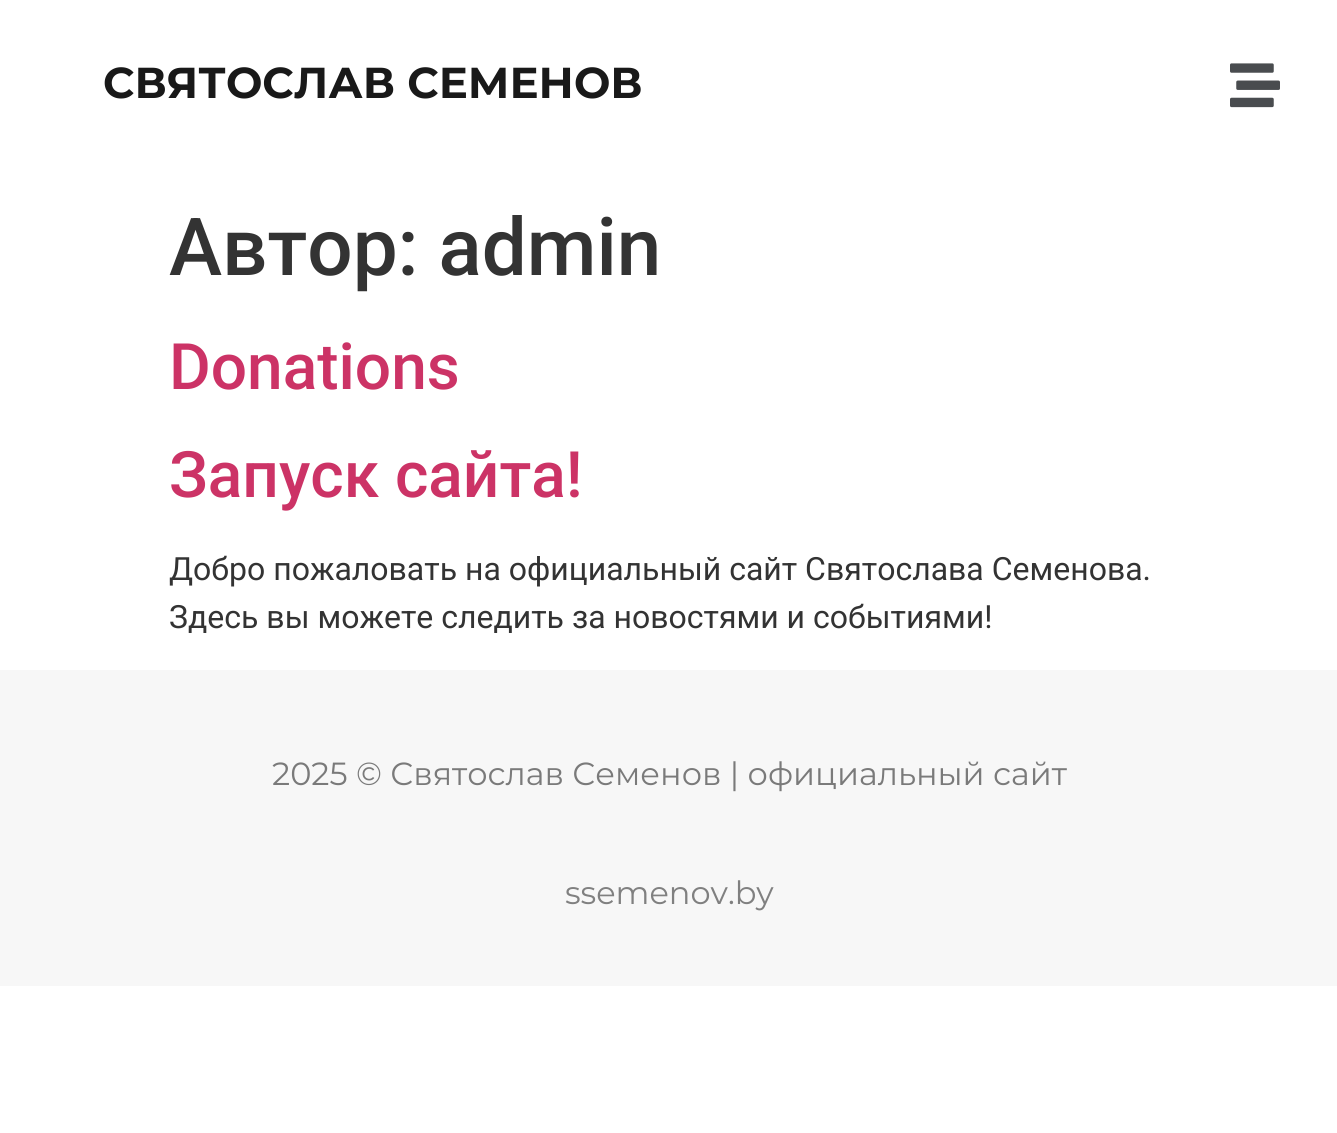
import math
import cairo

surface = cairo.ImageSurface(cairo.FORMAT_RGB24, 1337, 1133)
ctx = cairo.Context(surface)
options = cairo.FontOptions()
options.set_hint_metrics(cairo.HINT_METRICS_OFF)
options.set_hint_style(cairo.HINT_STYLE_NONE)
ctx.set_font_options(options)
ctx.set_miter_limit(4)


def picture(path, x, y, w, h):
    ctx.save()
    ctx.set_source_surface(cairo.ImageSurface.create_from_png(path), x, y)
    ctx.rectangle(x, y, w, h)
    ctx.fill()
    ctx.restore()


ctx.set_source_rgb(1, 1, 1)
ctx.paint()
ctx.select_font_face("Montserrat", cairo.FONT_SLANT_NORMAL, cairo.FONT_WEIGHT_BOLD)
ctx.set_font_size(43.25)
ctx.set_source_rgb(0.098, 0.098, 0.098)
ctx.move_to(103, 98)
ctx.show_text("СВЯТОСЛАВ СЕМЕНОВ")
picture("img1.png", 1230, 63, 50, 45)
ctx.select_font_face("Roboto Medium")
ctx.set_font_size(80)
ctx.set_source_rgb(0.2, 0.2, 0.2)
ctx.move_to(169, 275)
ctx.show_text("Автор: admin")
ctx.set_font_size(64)
ctx.set_source_rgb(0.8, 0.2, 0.4)
ctx.move_to(169, 389)
ctx.show_text("Donations")
ctx.move_to(169, 497)
ctx.show_text("Запуск сайта!")
ctx.select_font_face("Roboto")
ctx.set_font_size(32)
ctx.set_source_rgb(0.2, 0.2, 0.2)
ctx.move_to(169, 580)
ctx.show_text("Добро пожаловать на официальный сайт Святослава Семенова.")
ctx.move_to(169, 628)
ctx.show_text("Здесь вы можете следить за новостями и событиями!")
ctx.set_source_rgb(0.965, 0.965, 0.965)
ctx.rectangle(0, 670, 1337, 316)
ctx.fill()
ctx.select_font_face("Montserrat")
ctx.set_source_rgb(0.478, 0.478, 0.478)
ctx.move_to(272, 785)
ctx.show_text("2025 © Святослав Семенов | официальный сайт")
ctx.set_source_rgb(0.502, 0.502, 0.502)
ctx.move_to(565, 904)
ctx.show_text("ssemenov.by")
surface.write_to_png("page.png")
